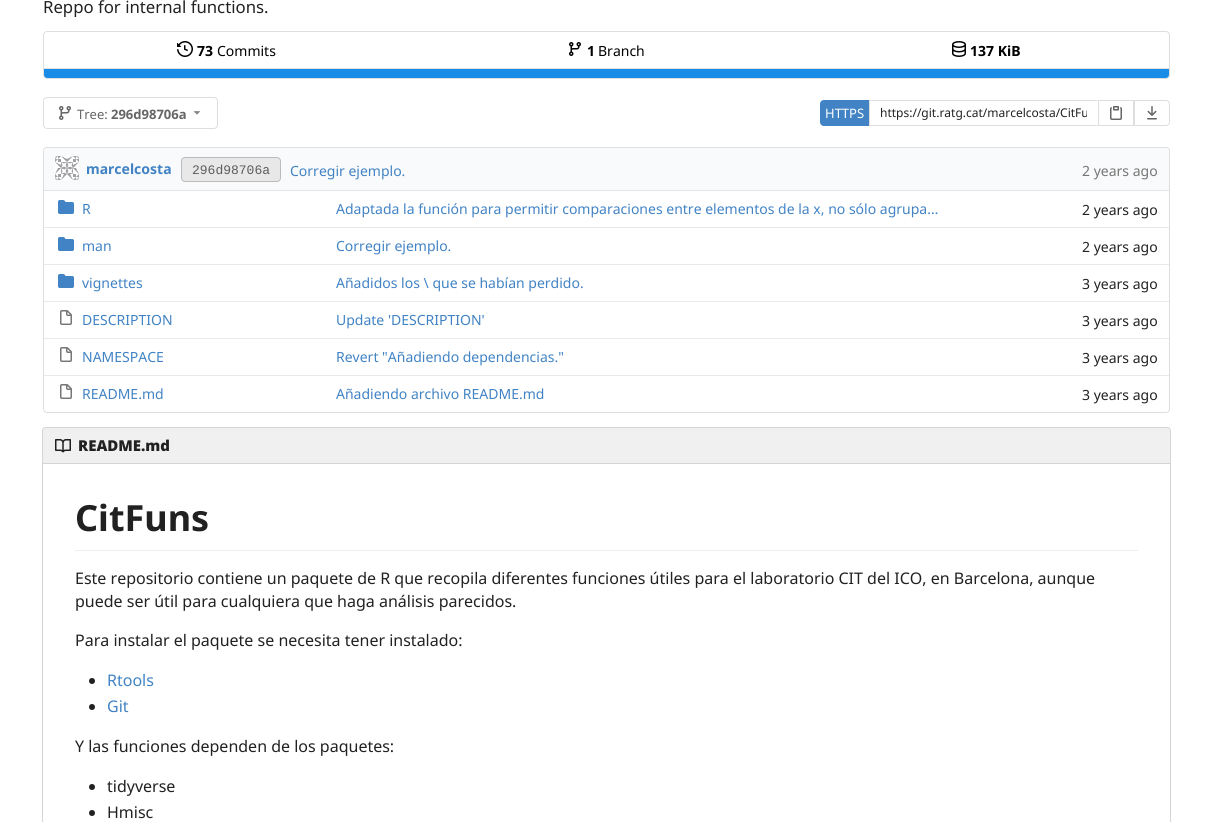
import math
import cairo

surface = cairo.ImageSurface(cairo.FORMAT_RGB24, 1212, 822)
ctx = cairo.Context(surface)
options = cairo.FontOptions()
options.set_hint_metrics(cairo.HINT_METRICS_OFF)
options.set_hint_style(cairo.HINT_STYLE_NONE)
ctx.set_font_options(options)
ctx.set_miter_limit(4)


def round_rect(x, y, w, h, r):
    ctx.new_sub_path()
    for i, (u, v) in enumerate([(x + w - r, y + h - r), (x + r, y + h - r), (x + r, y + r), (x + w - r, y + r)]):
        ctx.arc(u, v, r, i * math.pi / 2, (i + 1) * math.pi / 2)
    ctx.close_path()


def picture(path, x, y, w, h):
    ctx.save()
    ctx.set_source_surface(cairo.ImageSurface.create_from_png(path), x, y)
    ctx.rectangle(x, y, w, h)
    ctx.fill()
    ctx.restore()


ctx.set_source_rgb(1, 1, 1)
ctx.paint()
ctx.select_font_face("Noto Sans")
ctx.set_font_size(16.75)
ctx.set_source_rgb(0.129, 0.129, 0.129)
ctx.move_to(43, 13)
ctx.show_text("Reppo for internal functions.")
round_rect(43.5, 31.5, 1126, 47, 3.5)
ctx.set_source_rgb(0.871, 0.871, 0.871)
ctx.set_line_width(1)
ctx.stroke()
picture("img1.png", 177, 41, 16, 16)
ctx.select_font_face("Noto Sans", cairo.FONT_SLANT_NORMAL, cairo.FONT_WEIGHT_BOLD)
ctx.set_font_size(14)
ctx.set_source_rgb(0, 0, 0)
ctx.move_to(197, 56)
ctx.show_text("73")
ctx.select_font_face("Noto Sans")
ctx.move_to(217, 56)
ctx.show_text("Commits")
picture("img2.png", 569, 42, 12, 14)
ctx.select_font_face("Noto Sans", cairo.FONT_SLANT_NORMAL, cairo.FONT_WEIGHT_BOLD)
ctx.move_to(587, 56)
ctx.show_text("1")
ctx.select_font_face("Noto Sans")
ctx.move_to(598, 56)
ctx.show_text("Branch")
picture("img3.png", 952, 41, 14, 16)
ctx.select_font_face("Noto Sans", cairo.FONT_SLANT_NORMAL, cairo.FONT_WEIGHT_BOLD)
ctx.move_to(970, 56)
ctx.show_text("137 KiB")
ctx.set_source_rgb(0.871, 0.871, 0.871)
ctx.rectangle(44, 68, 1125, 1)
ctx.fill()
ctx.set_source_rgb(0.098, 0.549, 0.906)
ctx.new_path()
ctx.move_to(44, 69)
ctx.line_to(1169, 69)
ctx.line_to(1169, 75)
ctx.curve_to(1169, 76.5, 1167.5, 78, 1166, 78)
ctx.line_to(47, 78)
ctx.curve_to(45.5, 78, 44, 76.5, 44, 75)
ctx.close_path()
ctx.fill()
round_rect(43.5, 97.5, 174, 31, 3.5)
ctx.set_source_rgb(0.871, 0.871, 0.871)
ctx.stroke()
picture("img4.png", 59, 106, 12, 14)
ctx.select_font_face("Noto Sans")
ctx.set_font_size(13)
ctx.set_source_rgb(0.4, 0.4, 0.4)
ctx.move_to(77, 119)
ctx.show_text("Tree:")
ctx.select_font_face("Noto Sans", cairo.FONT_SLANT_NORMAL, cairo.FONT_WEIGHT_BOLD)
ctx.move_to(111, 119)
ctx.show_text("296d98706a")
picture("img5.png", 193, 111, 8, 4)
ctx.set_source_rgb(0.255, 0.514, 0.769)
ctx.new_path()
ctx.move_to(824, 100.5)
ctx.line_to(868.5, 100.5)
ctx.line_to(868.5, 125.5)
ctx.line_to(824, 125.5)
ctx.curve_to(822, 125.5, 820.5, 124, 820.5, 122)
ctx.line_to(820.5, 104)
ctx.curve_to(820.5, 102, 822, 100.5, 824, 100.5)
ctx.close_path()
ctx.fill_preserve()
ctx.stroke()
ctx.select_font_face("Noto Sans")
ctx.set_source_rgb(1, 1, 1)
ctx.move_to(825, 118)
ctx.show_text("HTTPS")
ctx.set_source_rgb(0.871, 0.871, 0.871)
ctx.new_path()
ctx.move_to(869, 100)
ctx.line_to(1098, 100)
ctx.line_to(1097, 101)
ctx.line_to(870, 101)
ctx.close_path()
ctx.fill()
ctx.new_path()
ctx.move_to(1098, 126)
ctx.line_to(869, 126)
ctx.line_to(870, 125)
ctx.line_to(1097, 125)
ctx.close_path()
ctx.fill()
ctx.set_source_rgba(0.133, 0.141, 0.149, 0.15)
ctx.new_path()
ctx.move_to(869, 126)
ctx.line_to(869, 100)
ctx.line_to(870, 101)
ctx.line_to(870, 125)
ctx.close_path()
ctx.fill()
ctx.save()
ctx.rectangle(880, 106, 207, 14)
ctx.clip()
ctx.set_font_size(12)
ctx.set_source_rgb(0.129, 0.129, 0.129)
ctx.move_to(880, 117)
ctx.show_text("https://git.ratg.cat/marcelcosta/CitFu")
ctx.restore()
ctx.rectangle(1098.5, 100.5, 35, 25)
ctx.set_source_rgb(0.871, 0.871, 0.871)
ctx.stroke()
picture("img6.png", 1110, 106, 12, 14)
ctx.new_path()
ctx.move_to(1134.5, 100.5)
ctx.line_to(1166, 100.5)
ctx.curve_to(1168, 100.5, 1169.5, 102, 1169.5, 104)
ctx.line_to(1169.5, 122)
ctx.curve_to(1169.5, 124, 1168, 125.5, 1166, 125.5)
ctx.line_to(1134.5, 125.5)
ctx.close_path()
ctx.stroke()
picture("img7.png", 1147, 106, 10, 14)
round_rect(43.5, 147.5, 1126, 265, 3.5)
ctx.stroke()
ctx.set_source_rgb(0.976, 0.98, 0.984)
ctx.new_path()
ctx.move_to(48, 148)
ctx.line_to(958, 148)
ctx.line_to(958, 191)
ctx.line_to(44, 191)
ctx.line_to(44, 152)
ctx.curve_to(44, 150, 46, 148, 48, 148)
ctx.close_path()
ctx.fill()
ctx.set_source_rgb(0.89, 0.898, 0.902)
ctx.rectangle(44, 190, 914, 1)
ctx.fill()
picture("img8.png", 55, 156, 24, 24)
ctx.select_font_face("Noto Sans", cairo.FONT_SLANT_NORMAL, cairo.FONT_WEIGHT_BOLD)
ctx.set_font_size(14)
ctx.set_source_rgb(0.255, 0.514, 0.769)
ctx.move_to(86, 174)
ctx.show_text("marcelcosta")
ctx.set_source_rgb(0.91, 0.91, 0.91)
round_rect(181.5, 157.5, 99, 24, 3.5)
ctx.fill_preserve()
ctx.set_source_rgb(0.733, 0.733, 0.733)
ctx.stroke()
ctx.select_font_face("Liberation Mono")
ctx.set_font_size(13)
ctx.set_source_rgb(0.365, 0.365, 0.365)
ctx.move_to(192, 174)
ctx.show_text("296d98706a")
ctx.select_font_face("Noto Sans")
ctx.set_font_size(14)
ctx.set_source_rgb(0.255, 0.514, 0.769)
ctx.move_to(290, 176)
ctx.show_text("Corregir ejemplo.")
ctx.set_source_rgb(0.976, 0.98, 0.984)
ctx.new_path()
ctx.move_to(958, 148)
ctx.line_to(1165, 148)
ctx.curve_to(1167, 148, 1169, 150, 1169, 152)
ctx.line_to(1169, 191)
ctx.line_to(958, 191)
ctx.close_path()
ctx.fill()
ctx.set_source_rgb(0.89, 0.898, 0.902)
ctx.rectangle(958, 190, 211, 1)
ctx.fill()
ctx.set_source_rgb(0.463, 0.463, 0.463)
ctx.move_to(1082, 176)
ctx.show_text("2 years ago")
picture("img9.png", 58, 200, 16, 14)
ctx.set_source_rgb(0.255, 0.514, 0.769)
ctx.move_to(82, 214)
ctx.show_text("R")
ctx.move_to(336, 214)
ctx.show_text("Adaptada la función para permitir comparaciones entre elementos de la x, no sólo agrupa…")
ctx.set_source_rgb(0.129, 0.129, 0.129)
ctx.move_to(1082, 215)
ctx.show_text("2 years ago")
ctx.set_source_rgb(0.914, 0.914, 0.914)
ctx.rectangle(44, 227, 1125, 1)
ctx.fill()
picture("img9.png", 58, 237, 16, 14)
ctx.set_source_rgb(0.255, 0.514, 0.769)
ctx.move_to(82, 251)
ctx.show_text("man")
ctx.move_to(336, 251)
ctx.show_text("Corregir ejemplo.")
ctx.set_source_rgb(0.129, 0.129, 0.129)
ctx.move_to(1082, 252)
ctx.show_text("2 years ago")
ctx.set_source_rgb(0.914, 0.914, 0.914)
ctx.rectangle(44, 264, 1125, 1)
ctx.fill()
picture("img9.png", 58, 274, 16, 14)
ctx.set_source_rgb(0.255, 0.514, 0.769)
ctx.move_to(82, 288)
ctx.show_text("vignettes")
ctx.move_to(336, 288)
ctx.show_text("Añadidos los \\ que se habían perdido.")
ctx.set_source_rgb(0.129, 0.129, 0.129)
ctx.move_to(1082, 289)
ctx.show_text("3 years ago")
ctx.set_source_rgb(0.914, 0.914, 0.914)
ctx.rectangle(44, 301, 1125, 1)
ctx.fill()
picture("img10.png", 60, 310, 12, 15)
ctx.set_source_rgb(0.255, 0.514, 0.769)
ctx.move_to(82, 325)
ctx.show_text("DESCRIPTION")
ctx.move_to(336, 325)
ctx.show_text("Update 'DESCRIPTION'")
ctx.set_source_rgb(0.129, 0.129, 0.129)
ctx.move_to(1082, 326)
ctx.show_text("3 years ago")
ctx.set_source_rgb(0.914, 0.914, 0.914)
ctx.rectangle(44, 338, 1125, 1)
ctx.fill()
picture("img10.png", 60, 347, 12, 15)
ctx.set_source_rgb(0.255, 0.514, 0.769)
ctx.move_to(82, 362)
ctx.show_text("NAMESPACE")
ctx.move_to(336, 362)
ctx.show_text("Revert \"Añadiendo dependencias.\"")
ctx.set_source_rgb(0.129, 0.129, 0.129)
ctx.move_to(1082, 363)
ctx.show_text("3 years ago")
ctx.set_source_rgb(0.914, 0.914, 0.914)
ctx.rectangle(44, 375, 1125, 1)
ctx.fill()
picture("img10.png", 60, 384, 12, 15)
ctx.set_source_rgb(0.255, 0.514, 0.769)
ctx.move_to(82, 399)
ctx.show_text("README.md")
ctx.move_to(336, 399)
ctx.show_text("Añadiendo archivo README.md")
ctx.set_source_rgb(0.129, 0.129, 0.129)
ctx.move_to(1082, 400)
ctx.show_text("3 years ago")
ctx.set_source_rgb(0.941, 0.941, 0.941)
ctx.new_path()
ctx.move_to(46, 427.5)
ctx.line_to(1167, 427.5)
ctx.curve_to(1169, 427.5, 1170.5, 429, 1170.5, 431)
ctx.line_to(1170.5, 463.5)
ctx.line_to(42.5, 463.5)
ctx.line_to(42.5, 431)
ctx.curve_to(42.5, 429, 44, 427.5, 46, 427.5)
ctx.close_path()
ctx.fill_preserve()
ctx.set_source_rgb(0.831, 0.831, 0.835)
ctx.stroke()
picture("img11.png", 55, 439, 16, 14)
ctx.select_font_face("Noto Sans Black")
ctx.set_font_size(15)
ctx.set_source_rgb(0.129, 0.129, 0.129)
ctx.move_to(78, 451)
ctx.show_text("README.md")
ctx.set_source_rgb(0.831, 0.831, 0.835)
ctx.rectangle(1170, 464, 1, 358)
ctx.fill()
ctx.rectangle(42, 464, 1, 358)
ctx.fill()
ctx.set_source_rgb(0.933, 0.933, 0.933)
ctx.rectangle(75, 550, 1063, 1)
ctx.fill()
ctx.select_font_face("Noto Sans", cairo.FONT_SLANT_NORMAL, cairo.FONT_WEIGHT_BOLD)
ctx.set_font_size(36)
ctx.set_source_rgb(0.129, 0.129, 0.129)
ctx.move_to(75, 531)
ctx.show_text("CitFuns")
ctx.select_font_face("Noto Sans")
ctx.set_font_size(16)
ctx.move_to(75, 584)
ctx.show_text("Este repositorio contiene un paquete de R que recopila diferentes funciones útiles para el laboratorio CIT del ICO, en Barcelona, aunque")
ctx.move_to(75, 607)
ctx.show_text("puede ser útil para cualquiera que haga análisis parecidos.")
ctx.move_to(75, 646)
ctx.show_text("Para instalar el paquete se necesita tener instalado:")
ctx.new_path()
ctx.arc(92, 681, 3, 0, 2 * math.pi)
ctx.fill()
ctx.set_source_rgb(0.255, 0.514, 0.769)
ctx.move_to(107, 686)
ctx.show_text("Rtools")
ctx.set_source_rgb(0.129, 0.129, 0.129)
ctx.new_path()
ctx.arc(92, 707, 3, 0, 2 * math.pi)
ctx.fill()
ctx.set_source_rgb(0.255, 0.514, 0.769)
ctx.move_to(107, 712)
ctx.show_text("Git")
ctx.set_source_rgb(0.129, 0.129, 0.129)
ctx.move_to(75, 752)
ctx.show_text("Y las funciones dependen de los paquetes:")
ctx.new_path()
ctx.arc(92, 787, 3, 0, 2 * math.pi)
ctx.fill()
ctx.move_to(107, 792)
ctx.show_text("tidyverse")
ctx.new_path()
ctx.arc(92, 813, 3, 0, 2 * math.pi)
ctx.fill()
ctx.move_to(107, 818)
ctx.show_text("Hmisc")
surface.write_to_png("page.png")
